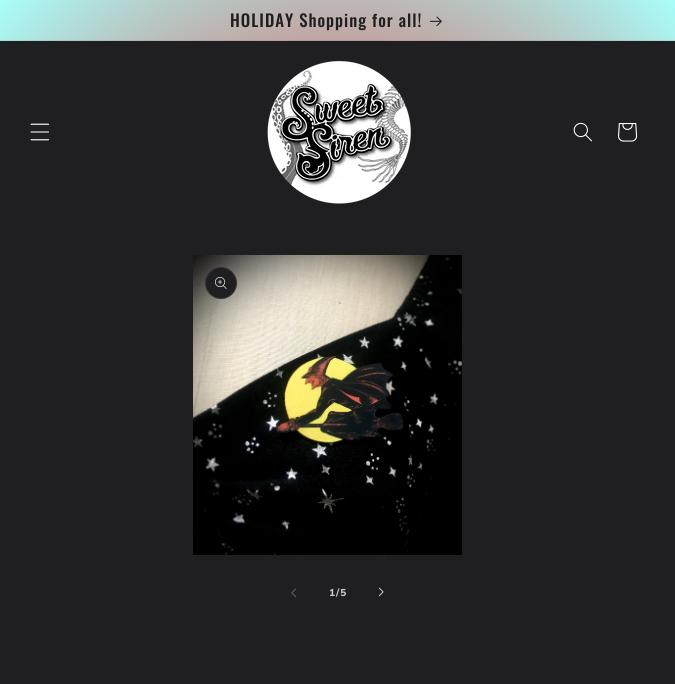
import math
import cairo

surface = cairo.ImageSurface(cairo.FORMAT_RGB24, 675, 684)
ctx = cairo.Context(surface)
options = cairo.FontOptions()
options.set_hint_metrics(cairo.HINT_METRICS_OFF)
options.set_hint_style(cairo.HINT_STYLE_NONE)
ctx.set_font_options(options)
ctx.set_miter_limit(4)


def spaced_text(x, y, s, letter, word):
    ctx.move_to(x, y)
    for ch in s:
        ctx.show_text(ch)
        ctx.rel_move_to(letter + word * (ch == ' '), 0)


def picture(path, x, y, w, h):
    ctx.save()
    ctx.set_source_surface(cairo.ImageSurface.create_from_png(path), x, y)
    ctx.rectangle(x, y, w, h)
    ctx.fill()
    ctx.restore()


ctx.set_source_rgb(0.122, 0.122, 0.129)
ctx.paint()
gradient = cairo.RadialGradient(0, 0, 0, 0, 0, 1)
gradient.set_matrix(cairo.Matrix(1 / 477, 0, 0, 1 / 484, -1 * 338 / 477, -1 * 342 / 484))
gradient.add_color_stop_rgba(0, 0.922, 0.063, 0.063, 1)
gradient.add_color_stop_rgba(1, 0.659, 1, 0.984, 1)
ctx.set_source(gradient)
ctx.rectangle(0, 0, 675, 40)
ctx.fill()
gradient = cairo.RadialGradient(0, 0, 0, 0, 0, 1)
gradient.set_matrix(cairo.Matrix(1 / 477, 0, 0, 1 / 484, -1 * 338 / 477, -1 * 342 / 484))
gradient.add_color_stop_rgba(0, 0.859, 0.067, 0.067, 1)
gradient.add_color_stop_rgba(1, 0.616, 0.929, 0.918, 1)
ctx.set_source(gradient)
ctx.rectangle(0, 40, 675, 1)
ctx.fill()
ctx.select_font_face("Oswald Medium")
ctx.set_font_size(16.75)
ctx.set_source_rgb(0.122, 0.122, 0.129)
spaced_text(230, 27, "HOLIDAY Shopping for all!", 1, 0)
picture("img1.png", 430, 16, 12, 10)
picture("img2.png", 30, 123, 20, 18)
picture("img3.png", 267, 60, 144, 144)
picture("img4.png", 573, 122, 19, 20)
picture("img5.png", 618, 123, 20, 19)
picture("img6.png", 193, 255, 269, 300)
ctx.arc(221, 283, 16, 0, 2 * math.pi)
ctx.fill()
ctx.arc(221, 283, 15.5, 0, 2 * math.pi)
ctx.set_source_rgba(1, 1, 1, 0.1)
ctx.set_line_width(1)
ctx.stroke()
picture("img7.png", 215, 277, 12, 12)
picture("img8.png", 291, 588, 6, 9)
ctx.select_font_face("Muli ExtraBold")
ctx.set_font_size(10)
ctx.set_source_rgb(0.78, 0.78, 0.784)
spaced_text(329, 596, "1/5", 1, 0)
picture("img9.png", 378, 587, 6, 10)
surface.write_to_png("page.png")
